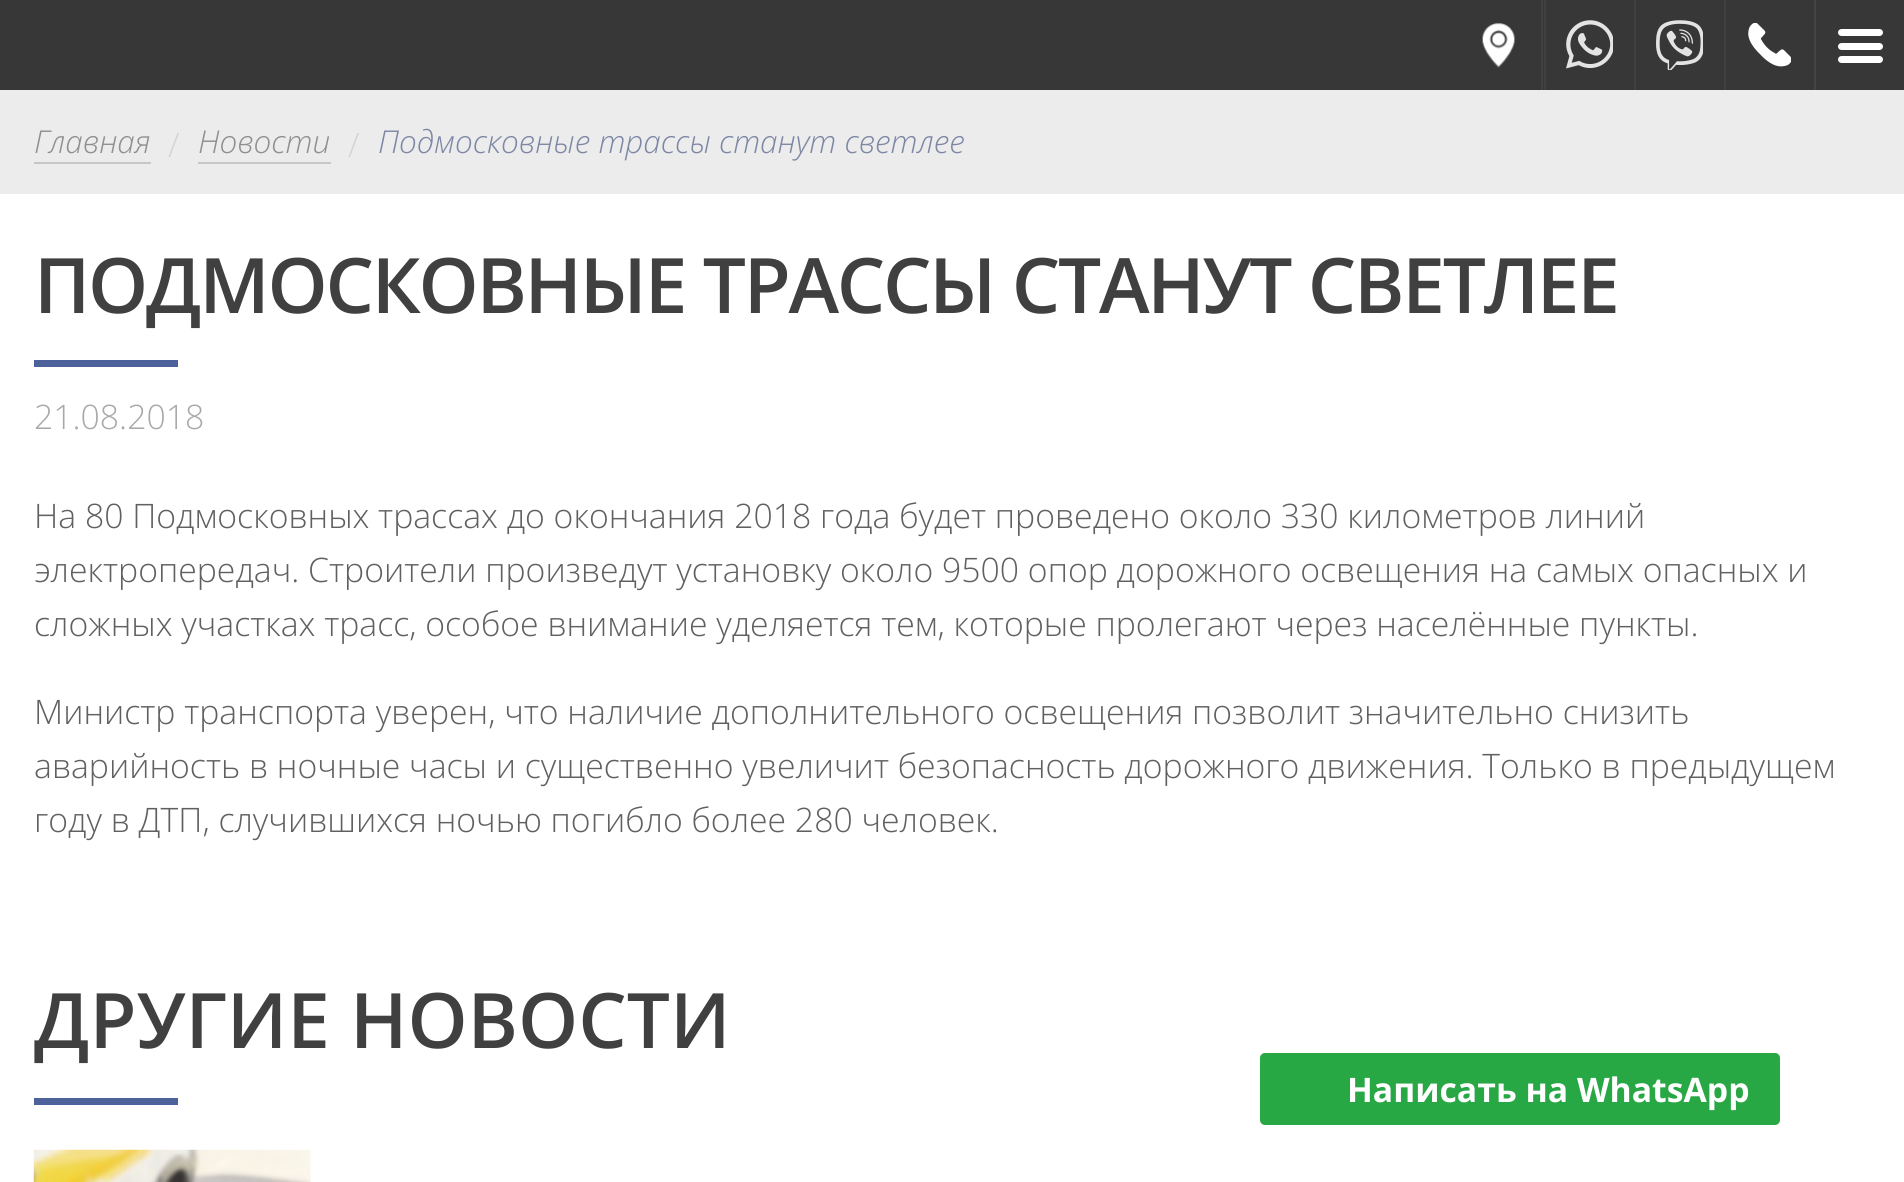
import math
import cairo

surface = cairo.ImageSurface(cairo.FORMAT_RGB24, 1904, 1182)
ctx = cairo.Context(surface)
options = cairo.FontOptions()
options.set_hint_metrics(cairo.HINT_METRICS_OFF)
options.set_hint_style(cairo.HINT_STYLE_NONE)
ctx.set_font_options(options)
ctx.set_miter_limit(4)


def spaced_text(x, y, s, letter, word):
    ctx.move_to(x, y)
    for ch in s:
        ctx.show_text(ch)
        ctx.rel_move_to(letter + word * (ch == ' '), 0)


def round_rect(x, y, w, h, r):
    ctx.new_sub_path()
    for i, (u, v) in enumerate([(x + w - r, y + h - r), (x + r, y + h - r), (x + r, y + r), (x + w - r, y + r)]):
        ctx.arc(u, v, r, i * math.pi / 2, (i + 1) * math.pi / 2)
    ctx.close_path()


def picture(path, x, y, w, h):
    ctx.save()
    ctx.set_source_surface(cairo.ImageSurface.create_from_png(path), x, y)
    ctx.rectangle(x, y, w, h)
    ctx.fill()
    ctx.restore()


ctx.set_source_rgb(1, 1, 1)
ctx.paint()
ctx.set_source_rgb(0.216, 0.216, 0.216)
ctx.rectangle(0, 0, 1904, 90)
ctx.fill()
ctx.set_source_rgb(0.251, 0.251, 0.251)
ctx.rectangle(1541, 0, 2, 90)
ctx.fill()
picture("img1.png", 1482, 23, 33, 45)
picture("img2.png", 1566, 20, 47, 49)
ctx.rectangle(1544, 0, 2, 90)
ctx.fill()
picture("img3.png", 1656, 20, 47, 50)
ctx.rectangle(1634, 0, 2, 90)
ctx.fill()
picture("img4.png", 1748, 23, 43, 44)
ctx.rectangle(1724, 0, 2, 90)
ctx.fill()
ctx.set_source_rgb(0.267, 0.267, 0.267)
ctx.rectangle(1814, 0, 2, 90)
ctx.fill()
ctx.set_source_rgb(1, 1, 1)
round_rect(1838, 43, 45, 7, 3.5)
ctx.fill()
round_rect(1838, 29, 45, 7, 3.5)
ctx.fill()
round_rect(1838, 56, 45, 7, 3.5)
ctx.fill()
ctx.set_source_rgb(0.925, 0.925, 0.925)
ctx.rectangle(0, 90, 1904, 104)
ctx.fill()
ctx.set_source_rgb(0.78, 0.78, 0.78)
ctx.rectangle(34, 162, 117, 2)
ctx.fill()
ctx.select_font_face("Open Sans Light", cairo.FONT_SLANT_ITALIC)
ctx.set_font_size(31.5)
ctx.set_source_rgb(0.561, 0.561, 0.561)
ctx.move_to(34, 153)
ctx.show_text("Главная")
ctx.select_font_face("Open Sans Light")
ctx.set_font_size(33.75)
ctx.set_source_rgb(0.831, 0.831, 0.831)
ctx.move_to(168, 157)
ctx.show_text("/")
ctx.set_source_rgb(0.78, 0.78, 0.78)
ctx.rectangle(198, 162, 133, 2)
ctx.fill()
ctx.select_font_face("Open Sans Light", cairo.FONT_SLANT_ITALIC)
ctx.set_font_size(31.5)
ctx.set_source_rgb(0.561, 0.561, 0.561)
ctx.move_to(198, 153)
ctx.show_text("Новости")
ctx.select_font_face("Open Sans Light")
ctx.set_font_size(33.75)
ctx.set_source_rgb(0.831, 0.831, 0.831)
ctx.move_to(348, 157)
ctx.show_text("/")
ctx.select_font_face("Open Sans Light", cairo.FONT_SLANT_ITALIC)
ctx.set_font_size(31.5)
ctx.set_source_rgb(0.49, 0.529, 0.647)
ctx.move_to(378, 153)
ctx.show_text("Подмосковные трассы станут светлее")
ctx.select_font_face("Open Sans SemiBold")
ctx.set_font_size(76.5)
ctx.set_source_rgb(0.251, 0.251, 0.251)
spaced_text(34, 313, "ПОДМОСКОВНЫЕ ТРАССЫ СТАНУТ СВЕТЛЕЕ", -2.25, 0)
ctx.set_source_rgb(0.302, 0.38, 0.604)
ctx.rectangle(34, 360, 144, 7)
ctx.fill()
ctx.select_font_face("Open Sans Light")
ctx.set_font_size(33.75)
ctx.set_source_rgb(0.659, 0.659, 0.659)
ctx.move_to(34, 429)
ctx.show_text("21.08.2018")
ctx.set_source_rgb(0.376, 0.376, 0.376)
ctx.move_to(34, 528)
ctx.show_text("На 80 Подмосковных трассах до окончания 2018 года будет проведено около 330 километров линий")
ctx.move_to(34, 582)
ctx.show_text("электропередач. Строители произведут установку около 9500 опор дорожного освещения на самых опасных и")
ctx.move_to(34, 636)
ctx.show_text("сложных участках трасс, особое внимание уделяется тем, которые пролегают через населённые пункты.")
ctx.move_to(34, 724)
ctx.show_text("Министр транспорта уверен, что наличие дополнительного освещения позволит значительно снизить")
ctx.move_to(34, 778)
ctx.show_text("аварийность в ночные часы и существенно увеличит безопасность дорожного движения. Только в предыдущем")
ctx.move_to(34, 832)
ctx.show_text("году в ДТП, случившихся ночью погибло более 280 человек.")
ctx.select_font_face("Open Sans SemiBold")
ctx.set_font_size(76.5)
ctx.set_source_rgb(0.251, 0.251, 0.251)
ctx.move_to(34, 1048)
ctx.show_text("ДРУГИЕ НОВОСТИ")
ctx.set_source_rgb(0.302, 0.38, 0.604)
ctx.rectangle(34, 1098, 144, 7)
ctx.fill()
picture("img5.png", 33, 1149, 278, 33)
ctx.set_source_rgb(0.157, 0.655, 0.271)
round_rect(1260, 1053, 520, 72, 5)
ctx.fill()
ctx.select_font_face("Open Sans", cairo.FONT_SLANT_NORMAL, cairo.FONT_WEIGHT_BOLD)
ctx.set_font_size(33.75)
ctx.set_source_rgb(1, 1, 1)
ctx.move_to(1347, 1102)
ctx.show_text("Написать на WhatsApp")
surface.write_to_png("page.png")
